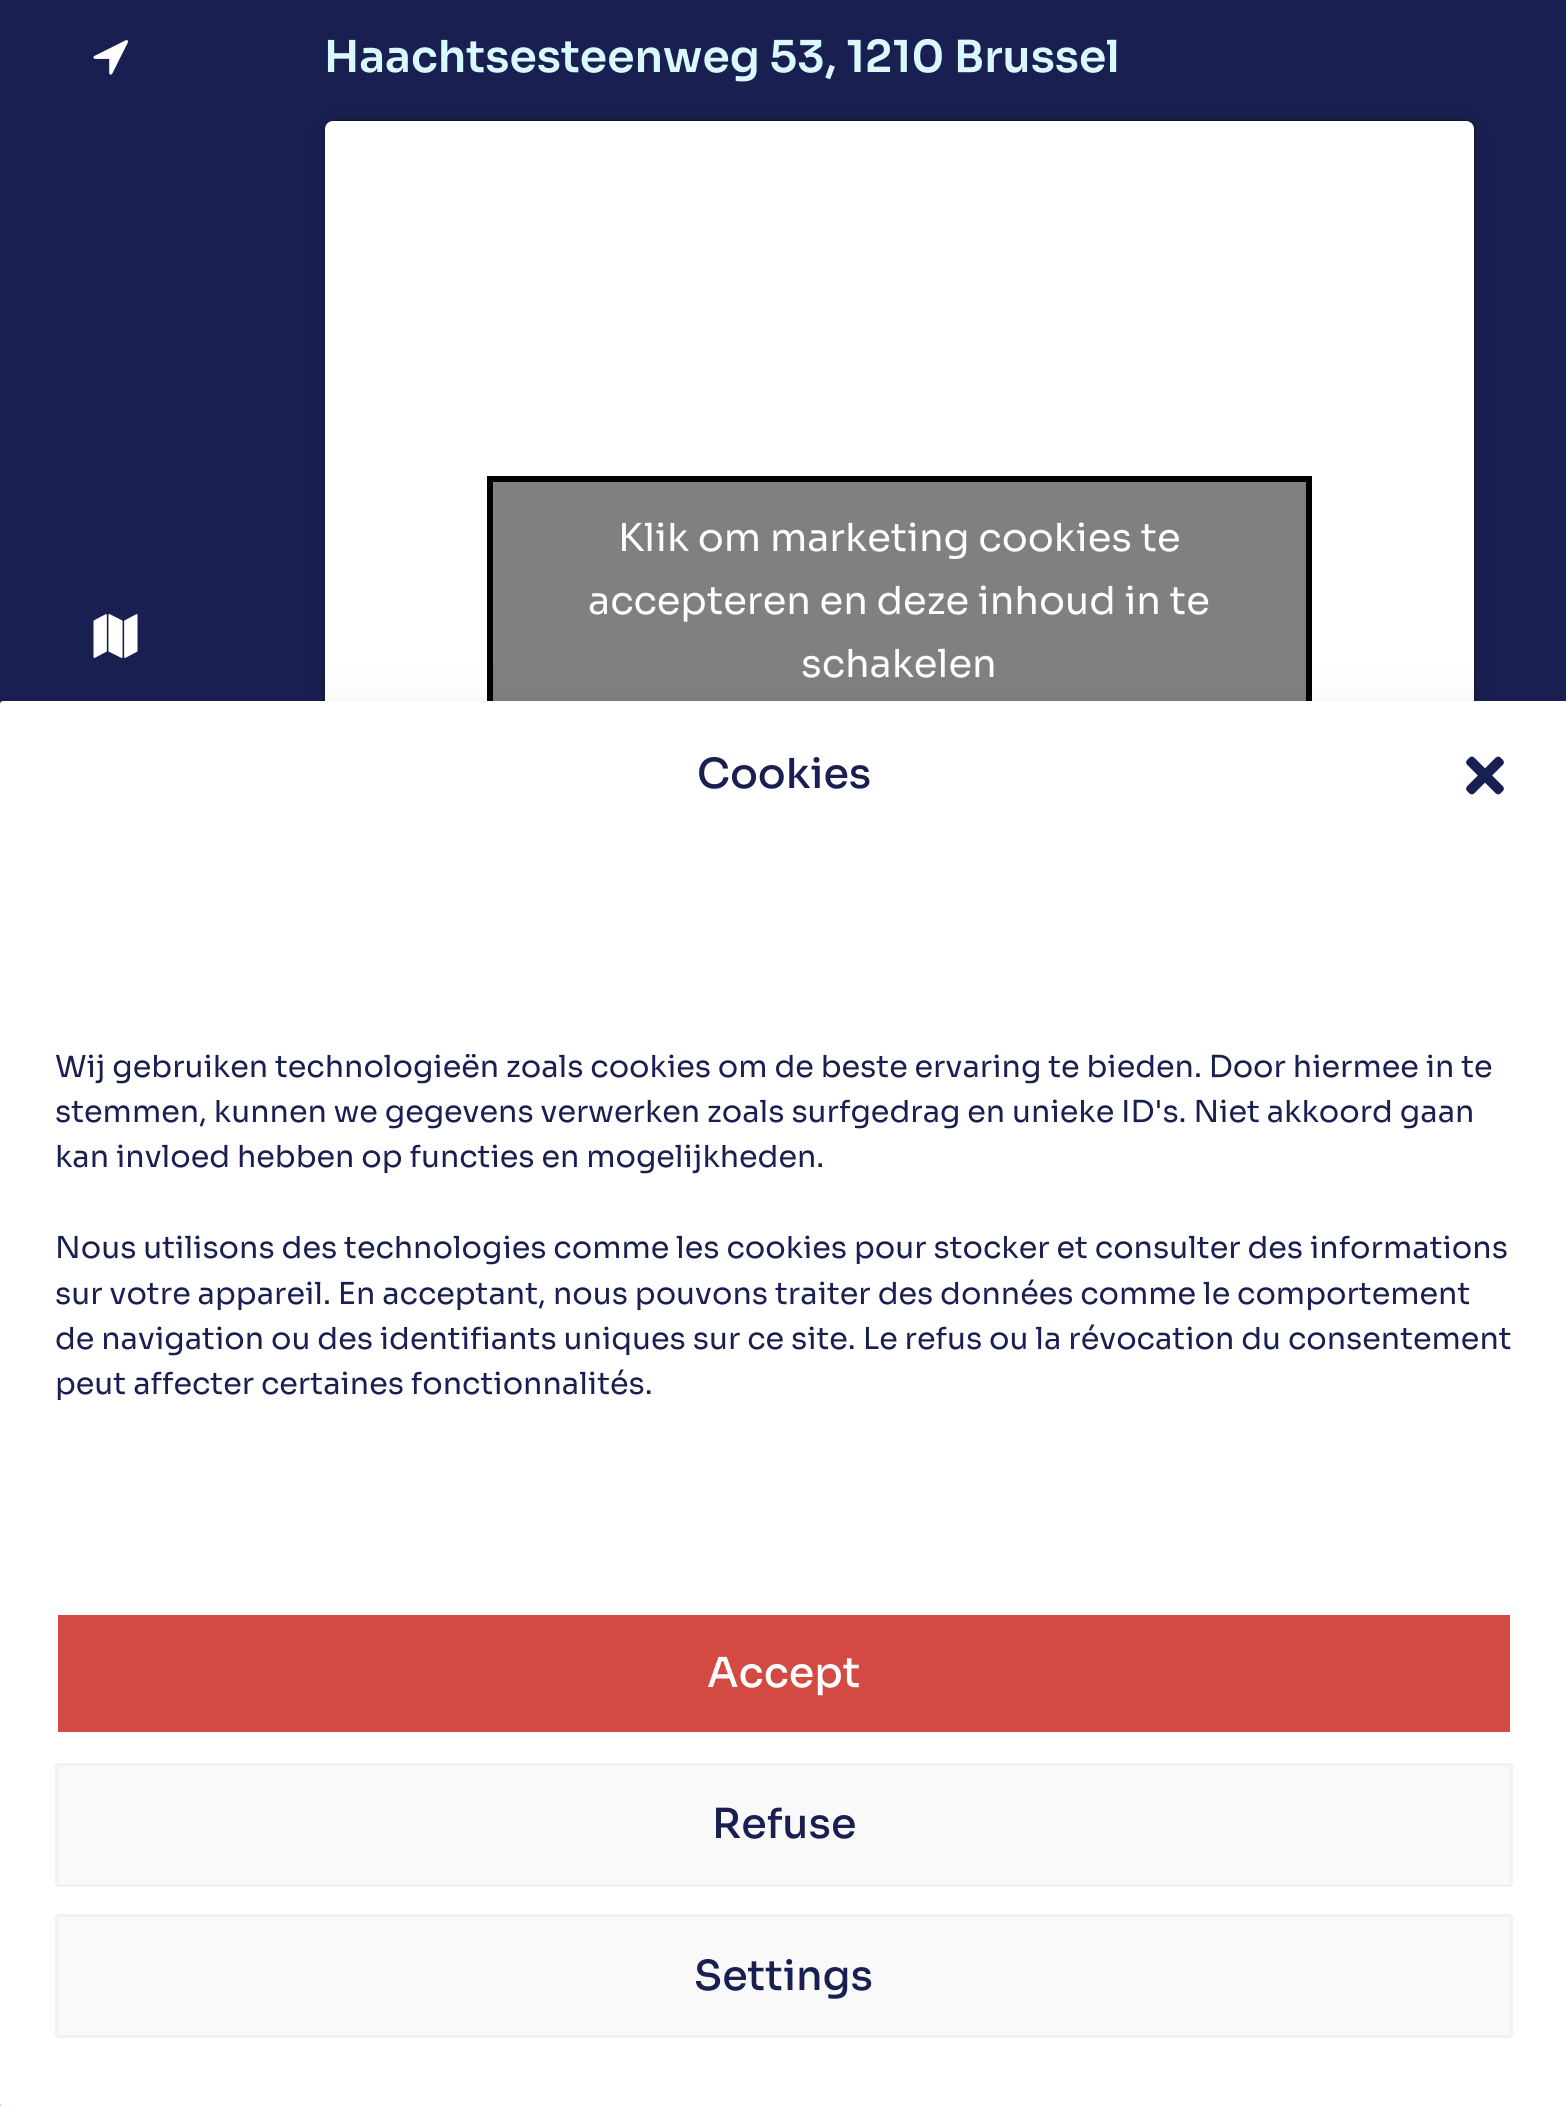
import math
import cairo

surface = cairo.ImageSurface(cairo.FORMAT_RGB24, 1566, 2106)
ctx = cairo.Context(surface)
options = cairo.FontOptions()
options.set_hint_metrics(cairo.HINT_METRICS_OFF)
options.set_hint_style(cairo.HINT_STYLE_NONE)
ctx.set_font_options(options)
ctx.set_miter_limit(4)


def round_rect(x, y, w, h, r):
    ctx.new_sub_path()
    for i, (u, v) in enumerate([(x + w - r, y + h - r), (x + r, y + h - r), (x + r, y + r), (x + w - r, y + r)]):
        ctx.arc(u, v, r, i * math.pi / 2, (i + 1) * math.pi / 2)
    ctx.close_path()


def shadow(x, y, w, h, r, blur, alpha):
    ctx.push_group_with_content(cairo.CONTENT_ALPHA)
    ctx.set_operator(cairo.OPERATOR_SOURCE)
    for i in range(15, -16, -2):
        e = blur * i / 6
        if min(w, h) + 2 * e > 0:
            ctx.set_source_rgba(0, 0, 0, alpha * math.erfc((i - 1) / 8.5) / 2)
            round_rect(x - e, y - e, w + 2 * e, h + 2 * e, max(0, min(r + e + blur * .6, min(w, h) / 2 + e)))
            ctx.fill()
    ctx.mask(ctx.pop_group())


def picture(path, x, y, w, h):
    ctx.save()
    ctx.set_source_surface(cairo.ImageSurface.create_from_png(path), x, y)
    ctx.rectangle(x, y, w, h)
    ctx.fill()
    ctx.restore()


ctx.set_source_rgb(0.098, 0.122, 0.318)
ctx.paint()
picture("img1.png", 93, 40, 36, 35)
ctx.select_font_face("Sora SemiBold")
ctx.set_font_size(44)
ctx.set_source_rgb(0.851, 0.973, 0.996)
ctx.move_to(324, 72)
ctx.show_text("Haachtsesteenweg 53, 1210 Brussel")
picture("img2.png", 93, 614, 45, 44)
ctx.set_source_rgb(0, 0, 0)
shadow(325, 124, 1149, 962, 8, 14, 0.15)
shadow(325, 121, 1149, 963, 8, 1.5, 0.5)
ctx.set_source_rgb(1, 1, 1)
round_rect(325, 121, 1149, 963, 8)
ctx.fill()
ctx.set_source_rgb(0.502, 0.502, 0.502)
ctx.rectangle(493, 482, 813, 219)
ctx.fill()
ctx.rectangle(490, 479, 819, 250)
ctx.set_source_rgb(0, 0, 0)
ctx.set_line_width(6)
ctx.stroke()
ctx.select_font_face("Sora")
ctx.set_font_size(38.5)
ctx.set_source_rgb(1, 1, 1)
ctx.move_to(618, 551)
ctx.show_text("Klik om marketing cookies te")
ctx.move_to(588, 614)
ctx.show_text("accepteren en deze inhoud in te")
ctx.move_to(801, 677)
ctx.show_text("schakelen")
ctx.set_source_rgb(0.824, 0.29, 0.255)
ctx.rectangle(0, 2104, 1, 2)
ctx.fill()
ctx.set_source_rgb(0, 0, 0)
shadow(0, 718, 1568, 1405, 3, 8, 0.23)
shadow(0, 729, 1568, 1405, 3, 27.5, 0.19)
ctx.set_source_rgb(1, 1, 1)
round_rect(0, 701, 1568, 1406, 3)
ctx.fill()
ctx.select_font_face("Sora Medium")
ctx.set_font_size(41.25)
ctx.set_source_rgb(0.098, 0.122, 0.318)
ctx.move_to(697, 788)
ctx.show_text("Cookies")
picture("img3.png", 1466, 756, 38, 39)
ctx.select_font_face("Sora")
ctx.set_font_size(30.25)
ctx.move_to(55, 1077)
ctx.show_text("Wij gebruiken technologieën zoals cookies om de beste ervaring te bieden. Door hiermee in te")
ctx.move_to(55, 1122)
ctx.show_text("stemmen, kunnen we gegevens verwerken zoals surfgedrag en unieke ID's. Niet akkoord gaan")
ctx.move_to(55, 1167)
ctx.show_text("kan invloed hebben op functies en mogelijkheden.")
ctx.move_to(55, 1258)
ctx.show_text("Nous utilisons des technologies comme les cookies pour stocker et consulter des informations")
ctx.move_to(55, 1304)
ctx.show_text("sur votre appareil. En acceptant, nous pouvons traiter des données comme le comportement")
ctx.move_to(55, 1349)
ctx.show_text("de navigation ou des identifiants uniques sur ce site. Le refus ou la révocation du consentement")
ctx.move_to(55, 1394)
ctx.show_text("peut affecter certaines fonctionnalités.")
ctx.set_source_rgb(0.824, 0.29, 0.255)
round_rect(56.5, 1613.5, 1455, 120, 1.5)
ctx.fill_preserve()
ctx.set_source_rgb(1, 1, 1)
ctx.set_line_width(3)
ctx.stroke()
ctx.select_font_face("Sora Medium")
ctx.set_font_size(41.25)
ctx.move_to(707, 1687)
ctx.show_text("Accept")
ctx.set_source_rgb(0.976, 0.976, 0.976)
round_rect(56.5, 1764.5, 1455, 121, 1.5)
ctx.fill_preserve()
ctx.set_source_rgb(0.949, 0.949, 0.949)
ctx.stroke()
ctx.set_source_rgb(0.098, 0.122, 0.318)
ctx.move_to(712, 1838)
ctx.show_text("Refuse")
ctx.set_source_rgb(0.976, 0.976, 0.976)
round_rect(56.5, 1915.5, 1455, 121, 1.5)
ctx.fill_preserve()
ctx.set_source_rgb(0.949, 0.949, 0.949)
ctx.stroke()
ctx.set_source_rgb(0.098, 0.122, 0.318)
ctx.move_to(694, 1990)
ctx.show_text("Settings")
surface.write_to_png("page.png")
